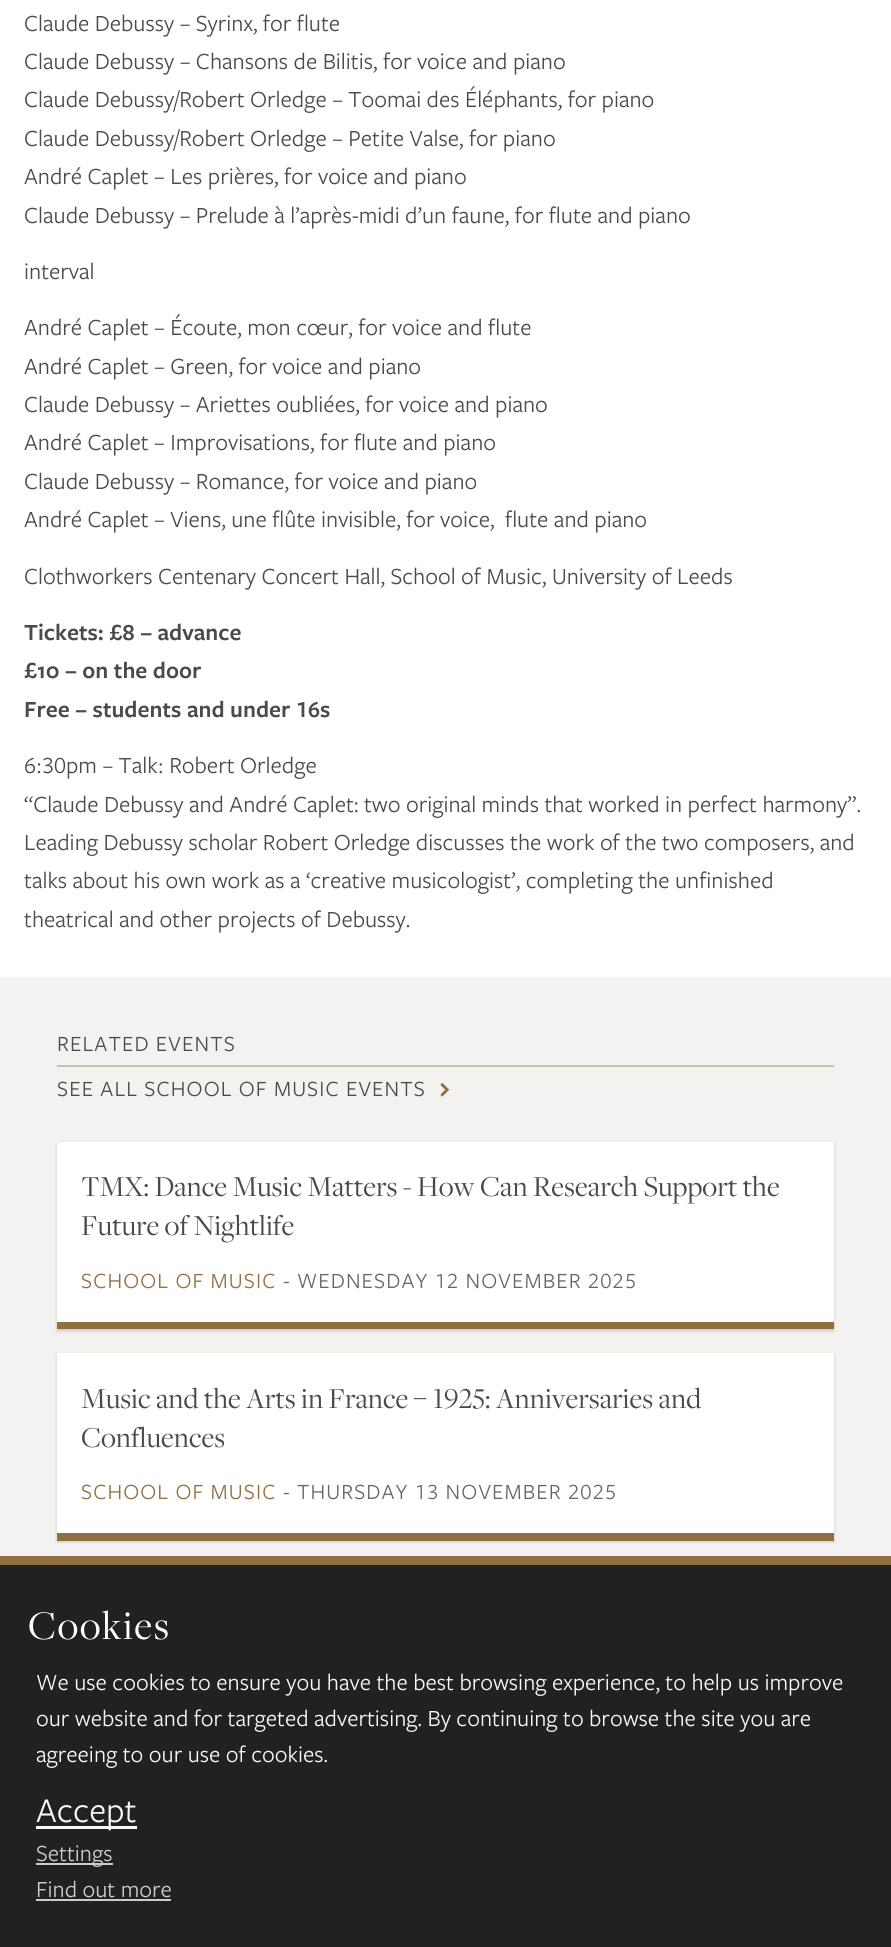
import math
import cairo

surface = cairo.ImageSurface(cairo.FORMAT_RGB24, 891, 1947)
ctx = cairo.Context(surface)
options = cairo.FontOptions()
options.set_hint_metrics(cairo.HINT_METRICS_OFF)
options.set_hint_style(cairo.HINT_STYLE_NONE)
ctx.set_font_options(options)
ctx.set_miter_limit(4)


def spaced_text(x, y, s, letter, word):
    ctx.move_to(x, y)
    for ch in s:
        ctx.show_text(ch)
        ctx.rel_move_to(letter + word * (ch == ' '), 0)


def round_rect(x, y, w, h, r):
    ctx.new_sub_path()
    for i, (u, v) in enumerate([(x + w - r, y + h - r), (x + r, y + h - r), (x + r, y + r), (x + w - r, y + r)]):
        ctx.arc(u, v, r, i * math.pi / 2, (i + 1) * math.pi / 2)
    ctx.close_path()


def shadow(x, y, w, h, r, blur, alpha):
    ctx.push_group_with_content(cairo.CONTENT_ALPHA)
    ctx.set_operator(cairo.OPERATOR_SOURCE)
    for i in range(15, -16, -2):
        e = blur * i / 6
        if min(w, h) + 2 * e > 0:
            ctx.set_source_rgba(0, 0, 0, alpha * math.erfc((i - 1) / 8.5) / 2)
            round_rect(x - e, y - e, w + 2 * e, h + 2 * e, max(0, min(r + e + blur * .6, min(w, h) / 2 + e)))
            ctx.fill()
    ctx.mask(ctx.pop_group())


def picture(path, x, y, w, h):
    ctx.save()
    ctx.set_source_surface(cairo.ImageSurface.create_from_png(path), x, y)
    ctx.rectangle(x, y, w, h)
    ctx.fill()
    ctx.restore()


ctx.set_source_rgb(1, 1, 1)
ctx.paint()
ctx.select_font_face("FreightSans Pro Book")
ctx.set_font_size(24)
ctx.set_source_rgb(0.29, 0.29, 0.29)
ctx.move_to(24, 31)
ctx.show_text("Claude Debussy – Syrinx, for flute")
ctx.move_to(24, 69)
ctx.show_text("Claude Debussy – Chansons de Bilitis, for voice and piano")
ctx.move_to(24, 107)
ctx.show_text("Claude Debussy/Robert Orledge – Toomai des Éléphants, for piano")
ctx.move_to(24, 146)
ctx.show_text("Claude Debussy/Robert Orledge – Petite Valse, for piano")
ctx.move_to(24, 184)
ctx.show_text("André Caplet – Les prières, for voice and piano")
ctx.move_to(24, 223)
ctx.show_text("Claude Debussy – Prelude à l’après-midi d’un faune, for flute and piano")
ctx.move_to(24, 279)
ctx.show_text("interval")
ctx.move_to(24, 335)
ctx.show_text("André Caplet – Écoute, mon cœur, for voice and flute")
ctx.move_to(24, 374)
ctx.show_text("André Caplet – Green, for voice and piano")
ctx.move_to(24, 412)
ctx.show_text("Claude Debussy – Ariettes oubliées, for voice and piano")
ctx.move_to(24, 450)
ctx.show_text("André Caplet – Improvisations, for flute and piano")
ctx.move_to(24, 489)
ctx.show_text("Claude Debussy – Romance, for voice and piano")
ctx.move_to(24, 527)
ctx.show_text("André Caplet – Viens, une flûte invisible, for voice,")
ctx.move_to(505, 527)
ctx.show_text("flute and piano")
ctx.move_to(24, 584)
ctx.show_text("Clothworkers Centenary Concert Hall, School of Music, University of Leeds")
ctx.select_font_face("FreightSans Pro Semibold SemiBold")
ctx.move_to(24, 640)
ctx.show_text("Tickets: £8 – advance")
ctx.move_to(24, 678)
ctx.show_text("£10 – on the door")
ctx.select_font_face("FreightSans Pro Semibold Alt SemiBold")
ctx.move_to(24, 717)
ctx.show_text("Free – students and under 16s")
ctx.select_font_face("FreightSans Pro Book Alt")
ctx.move_to(24, 773)
ctx.show_text("6:30pm – Talk: Robert Orledge")
ctx.select_font_face("FreightSans Pro Book")
ctx.move_to(24, 812)
ctx.show_text("“Claude Debussy and André Caplet: two original minds that worked in perfect harmony”.")
ctx.move_to(24, 850)
ctx.show_text("Leading Debussy scholar Robert Orledge discusses the work of the two composers, and")
ctx.move_to(24, 888)
ctx.show_text("talks about his own work as a ‘creative musicologist’, completing the unfinished")
ctx.move_to(24, 927)
ctx.show_text("theatrical and other projects of Debussy.")
ctx.set_source_rgb(0.957, 0.949, 0.941)
ctx.rectangle(0, 977, 891, 579)
ctx.fill()
ctx.set_source_rgb(0.788, 0.749, 0.71)
ctx.rectangle(57, 1065, 777, 2)
ctx.fill()
ctx.set_font_size(22.5)
ctx.set_source_rgb(0.29, 0.29, 0.29)
spaced_text(57, 1051, "RELATED EVENTS", 1.1, 0)
spaced_text(57, 1096, "SEE ALL SCHOOL OF MUSIC EVENTS", 1.1, 0)
picture("img1.png", 440, 1082, 10, 15)
ctx.set_source_rgb(0, 0, 0)
shadow(57, 1143, 777, 188, 0, 1.5, 0.17)
ctx.set_source_rgb(1, 1, 1)
ctx.rectangle(57, 1142, 777, 180)
ctx.fill()
ctx.set_source_rgb(0.569, 0.435, 0.251)
ctx.rectangle(57, 1322, 777, 7)
ctx.fill()
ctx.select_font_face("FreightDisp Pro")
ctx.set_font_size(30)
ctx.set_source_rgb(0.29, 0.29, 0.29)
ctx.move_to(81, 1196)
ctx.show_text("TMX: Dance Music Matters - How Can Research Support the")
ctx.move_to(81, 1235)
ctx.show_text("Future of Nightlife")
ctx.select_font_face("FreightSans Pro Book")
ctx.set_font_size(22.5)
ctx.set_source_rgb(0.569, 0.435, 0.251)
spaced_text(81, 1288, "SCHOOL OF MUSIC", 1.1, 0)
ctx.select_font_face("FreightSans Pro Book Alt")
ctx.set_source_rgb(0.4, 0.4, 0.4)
spaced_text(283, 1288, "- WEDNESDAY 12 NOVEMBER 2025", 1.1, 0)
ctx.set_source_rgb(0, 0, 0)
shadow(57, 1355, 777, 187, 0, 1.5, 0.17)
ctx.set_source_rgb(1, 1, 1)
ctx.rectangle(57, 1353, 777, 180)
ctx.fill()
ctx.set_source_rgb(0.569, 0.435, 0.251)
ctx.rectangle(57, 1533, 777, 8)
ctx.fill()
ctx.select_font_face("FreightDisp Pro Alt")
ctx.set_font_size(30)
ctx.set_source_rgb(0.29, 0.29, 0.29)
ctx.move_to(81, 1408)
ctx.show_text("Music and the Arts in France – 1925: Anniversaries and")
ctx.select_font_face("FreightDisp Pro")
ctx.move_to(81, 1447)
ctx.show_text("Confluences")
ctx.select_font_face("FreightSans Pro Book")
ctx.set_font_size(22.5)
ctx.set_source_rgb(0.569, 0.435, 0.251)
spaced_text(81, 1499, "SCHOOL OF MUSIC", 1.1, 0)
ctx.select_font_face("FreightSans Pro Book Alt")
ctx.set_source_rgb(0.4, 0.4, 0.4)
spaced_text(283, 1499, "- THURSDAY 13 NOVEMBER 2025", 1.1, 0)
ctx.set_source_rgb(0.129, 0.129, 0.129)
ctx.rectangle(0, 1565, 891, 382)
ctx.fill()
ctx.set_source_rgb(0.569, 0.435, 0.251)
ctx.rectangle(0, 1556, 891, 9)
ctx.fill()
ctx.select_font_face("FreightDisp Pro")
ctx.set_font_size(42)
ctx.set_source_rgb(1, 1, 1)
spaced_text(28, 1639, "Cookies", 1.5, 0)
ctx.select_font_face("FreightSans Pro Book")
ctx.set_font_size(24)
ctx.set_source_rgb(0.969, 0.969, 0.969)
ctx.move_to(36, 1690)
ctx.show_text("We use cookies to ensure you have the best browsing experience, to help us improve")
ctx.move_to(36, 1726)
ctx.show_text("our website and for targeted advertising. By continuing to browse the site you are")
ctx.move_to(36, 1762)
ctx.show_text("agreeing to our use of cookies.")
ctx.rectangle(36, 1826, 101, 3)
ctx.fill()
ctx.set_font_size(36)
ctx.move_to(36, 1822)
ctx.show_text("Accept")
ctx.set_source_rgb(0.8, 0.8, 0.8)
ctx.rectangle(36, 1863, 77, 2)
ctx.fill()
ctx.set_font_size(24)
ctx.move_to(36, 1861)
ctx.show_text("Settings")
ctx.move_to(36, 1897)
ctx.show_text("Find out more")
ctx.rectangle(36, 1899, 135, 2)
ctx.fill()
surface.write_to_png("page.png")
